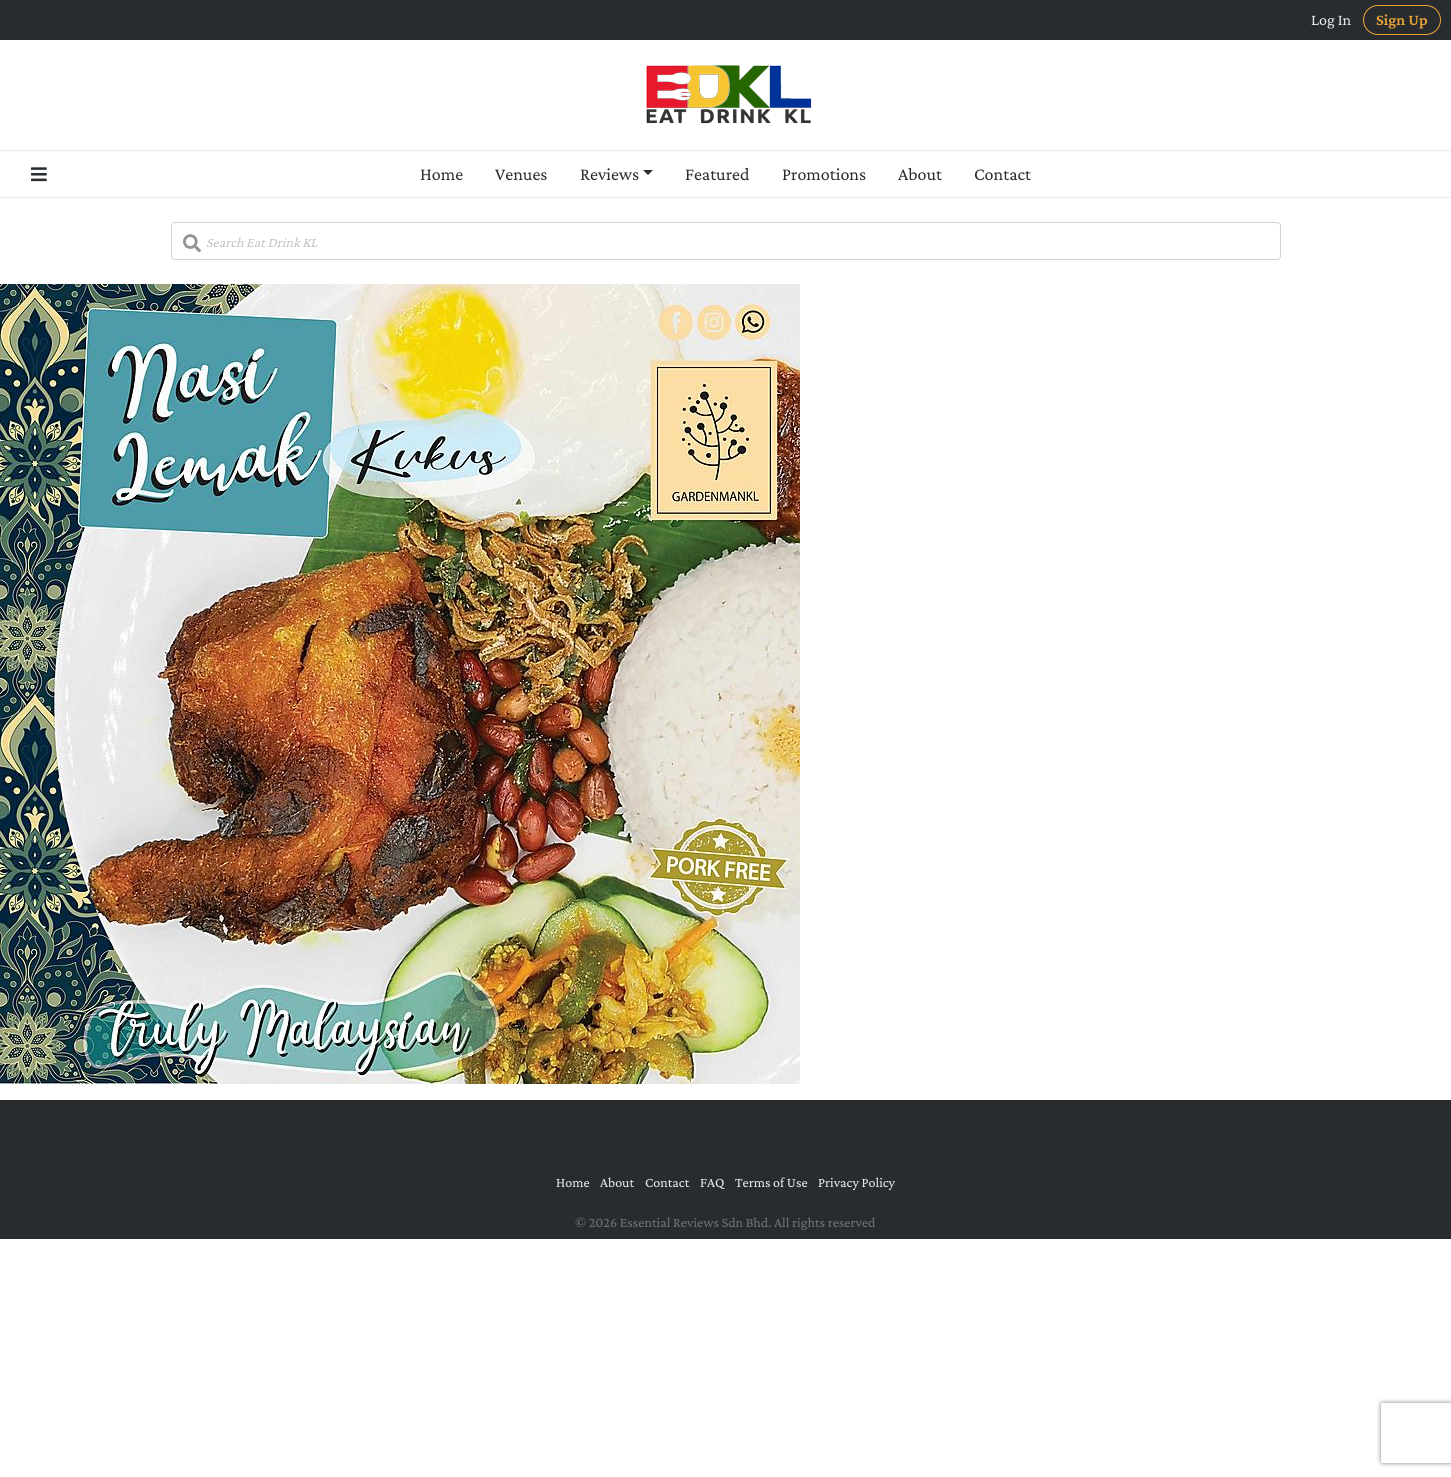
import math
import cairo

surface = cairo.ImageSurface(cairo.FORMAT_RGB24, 1451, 1477)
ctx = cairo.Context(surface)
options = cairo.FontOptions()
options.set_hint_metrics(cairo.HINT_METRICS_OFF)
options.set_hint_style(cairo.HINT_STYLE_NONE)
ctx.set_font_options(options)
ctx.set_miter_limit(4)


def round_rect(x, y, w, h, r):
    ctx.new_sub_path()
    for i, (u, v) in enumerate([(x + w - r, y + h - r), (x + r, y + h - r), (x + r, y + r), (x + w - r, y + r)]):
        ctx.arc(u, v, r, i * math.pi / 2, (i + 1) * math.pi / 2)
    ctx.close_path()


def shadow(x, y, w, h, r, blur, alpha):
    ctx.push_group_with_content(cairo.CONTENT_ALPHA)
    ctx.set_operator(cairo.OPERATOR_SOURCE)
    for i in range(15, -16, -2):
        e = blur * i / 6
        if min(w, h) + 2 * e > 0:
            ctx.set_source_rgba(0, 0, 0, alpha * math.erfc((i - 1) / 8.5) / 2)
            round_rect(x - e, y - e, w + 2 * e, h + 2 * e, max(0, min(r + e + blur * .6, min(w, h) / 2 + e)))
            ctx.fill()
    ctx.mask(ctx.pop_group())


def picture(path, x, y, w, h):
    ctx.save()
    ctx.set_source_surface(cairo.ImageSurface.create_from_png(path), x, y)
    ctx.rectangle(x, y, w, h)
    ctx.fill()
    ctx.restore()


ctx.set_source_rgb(1, 1, 1)
ctx.paint()
ctx.set_source_rgb(0.161, 0.173, 0.184)
ctx.rectangle(0, 0, 1451, 40)
ctx.fill()
ctx.select_font_face("Crimson Pro")
ctx.set_font_size(16)
ctx.set_source_rgb(0.933, 0.933, 0.933)
ctx.move_to(1311, 25)
ctx.show_text("Log In")
round_rect(1363.5, 5.5, 77, 29, 14.5)
ctx.set_source_rgb(0.922, 0.643, 0.22)
ctx.set_line_width(1)
ctx.stroke()
ctx.select_font_face("Crimson Pro SemiBold")
ctx.move_to(1376, 25)
ctx.show_text("Sign Up")
picture("img1.png", 646, 65, 166, 59)
ctx.set_source_rgb(0.918, 0.918, 0.918)
ctx.rectangle(0, 150, 1451, 1)
ctx.fill()
ctx.rectangle(0, 197, 1451, 1)
ctx.fill()
picture("img2.png", 31, 167, 16, 15)
ctx.select_font_face("Crimson Pro")
ctx.set_font_size(18)
ctx.set_source_rgb(0.157, 0.176, 0.196)
ctx.move_to(420, 180)
ctx.show_text("Home")
ctx.move_to(495, 180)
ctx.show_text("Venues")
ctx.move_to(580, 180)
ctx.show_text("Reviews")
ctx.new_path()
ctx.move_to(643, 170)
ctx.line_to(653, 170)
ctx.line_to(648, 175)
ctx.close_path()
ctx.fill()
ctx.move_to(685, 180)
ctx.show_text("Featured")
ctx.move_to(782, 180)
ctx.show_text("Promotions")
ctx.move_to(898, 180)
ctx.show_text("About")
ctx.move_to(974, 180)
ctx.show_text("Contact")
round_rect(171.5, 222.5, 1109, 37, 3.5)
ctx.set_source_rgb(0.808, 0.831, 0.855)
ctx.stroke()
picture("img3.png", 183, 234, 18, 19)
ctx.select_font_face("Crimson Pro", cairo.FONT_SLANT_ITALIC)
ctx.set_font_size(14)
ctx.set_source_rgb(0.761, 0.761, 0.761)
ctx.move_to(206, 247)
ctx.show_text("Search Eat Drink KL")
picture("img4.png", 0, 284, 800, 800)
ctx.set_source_rgb(0.161, 0.173, 0.184)
ctx.rectangle(0, 1100, 1451, 139)
ctx.fill()
ctx.select_font_face("Crimson Pro")
ctx.set_source_rgb(0.933, 0.933, 0.933)
ctx.move_to(556, 1187)
ctx.show_text("Home")
ctx.move_to(600, 1187)
ctx.show_text("About")
ctx.move_to(645, 1187)
ctx.show_text("Contact")
ctx.move_to(700, 1187)
ctx.show_text("FAQ")
ctx.move_to(735, 1187)
ctx.show_text("Terms of Use")
ctx.move_to(818, 1187)
ctx.show_text("Privacy Policy")
ctx.set_source_rgb(0.424, 0.459, 0.49)
ctx.move_to(575, 1227)
ctx.show_text("© 2026 Essential Reviews Sdn Bhd. All rights reserved")
ctx.save()
ctx.set_fill_rule(cairo.FILL_RULE_EVEN_ODD)
ctx.new_path()
ctx.move_to(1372, 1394)
ctx.line_to(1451, 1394)
ctx.line_to(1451, 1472)
ctx.line_to(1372, 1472)
ctx.close_path()
ctx.move_to(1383, 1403)
ctx.line_to(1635, 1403)
ctx.curve_to(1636, 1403, 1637, 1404, 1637, 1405)
ctx.line_to(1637, 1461)
ctx.curve_to(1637, 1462, 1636, 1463, 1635, 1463)
ctx.line_to(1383, 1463)
ctx.curve_to(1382, 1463, 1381, 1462, 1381, 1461)
ctx.line_to(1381, 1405)
ctx.curve_to(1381, 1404, 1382, 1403, 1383, 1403)
ctx.close_path()
ctx.clip()
ctx.set_source_rgb(0.502, 0.502, 0.502)
shadow(1381, 1403, 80, 60, 2, 2.5, 1)
ctx.restore()
surface.write_to_png("page.png")
